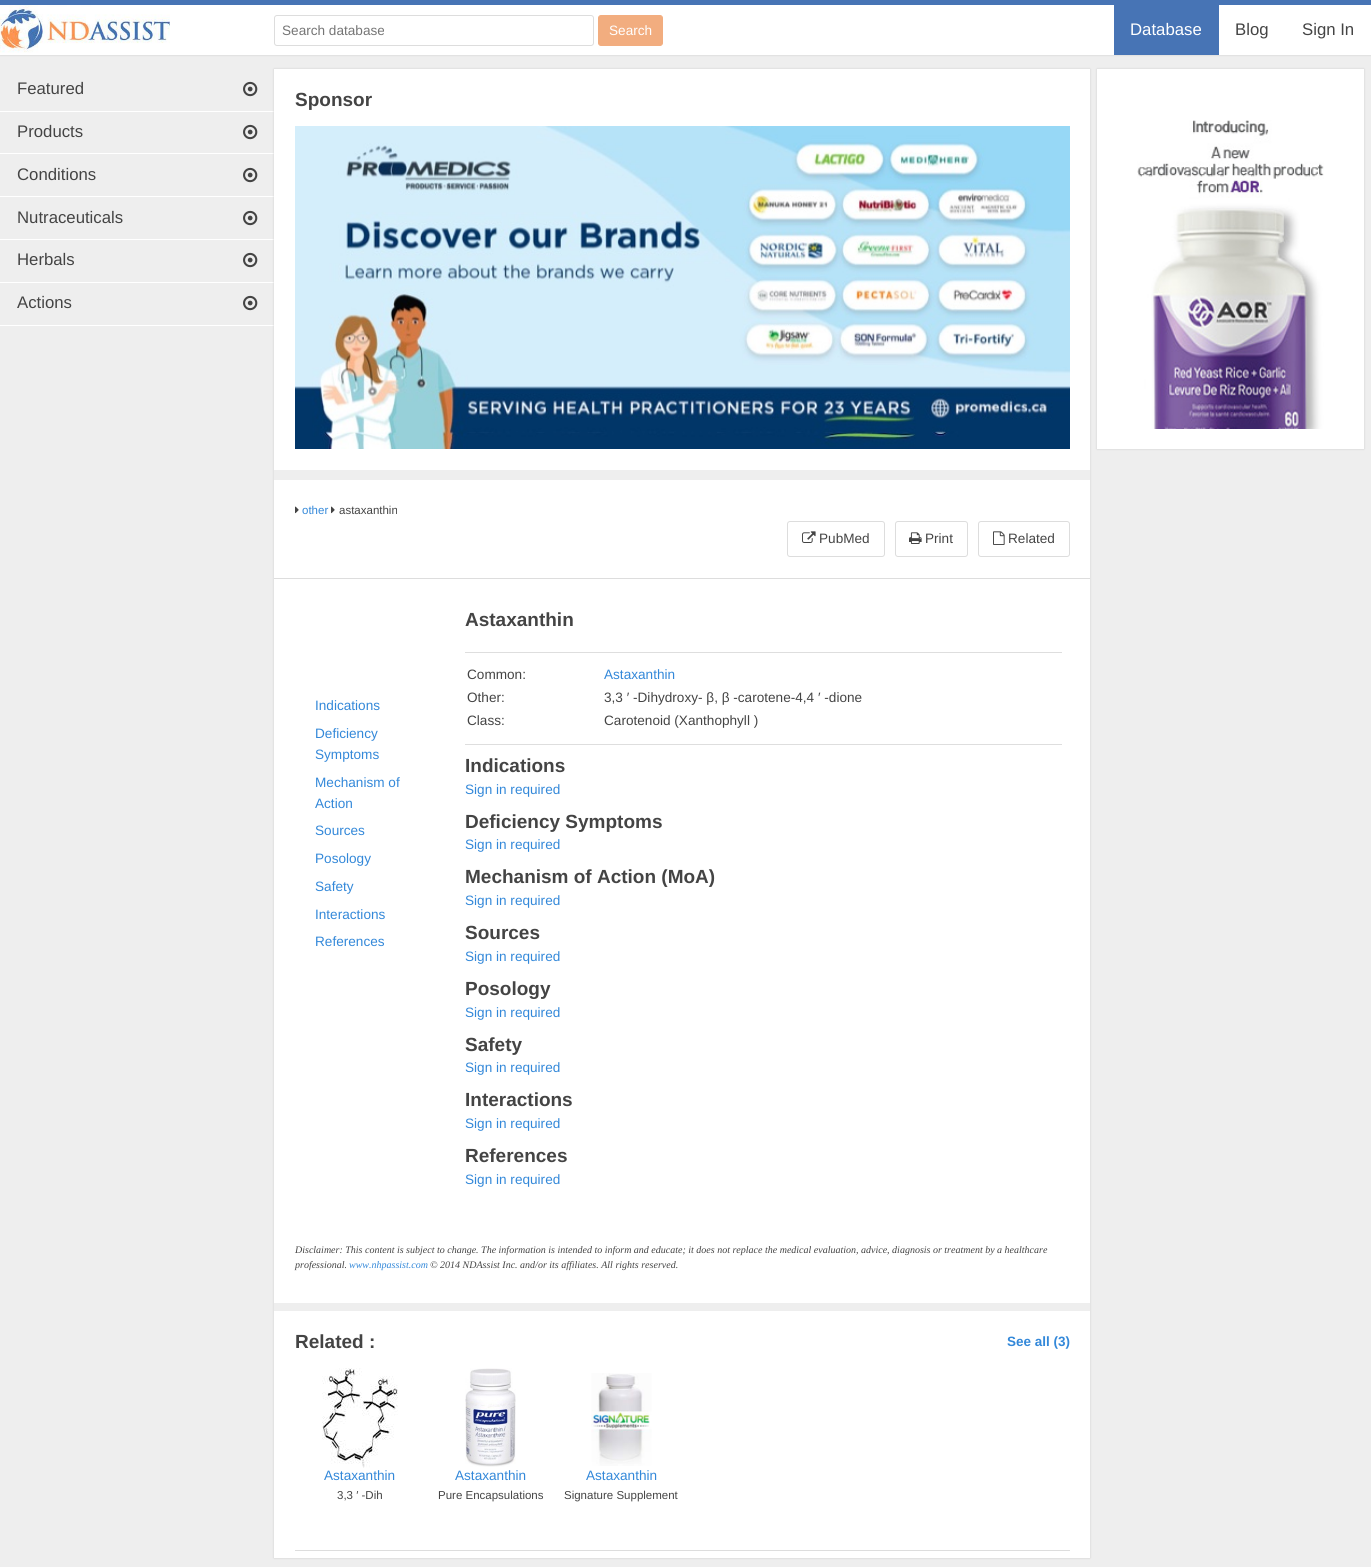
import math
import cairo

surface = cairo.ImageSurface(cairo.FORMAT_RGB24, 1371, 1567)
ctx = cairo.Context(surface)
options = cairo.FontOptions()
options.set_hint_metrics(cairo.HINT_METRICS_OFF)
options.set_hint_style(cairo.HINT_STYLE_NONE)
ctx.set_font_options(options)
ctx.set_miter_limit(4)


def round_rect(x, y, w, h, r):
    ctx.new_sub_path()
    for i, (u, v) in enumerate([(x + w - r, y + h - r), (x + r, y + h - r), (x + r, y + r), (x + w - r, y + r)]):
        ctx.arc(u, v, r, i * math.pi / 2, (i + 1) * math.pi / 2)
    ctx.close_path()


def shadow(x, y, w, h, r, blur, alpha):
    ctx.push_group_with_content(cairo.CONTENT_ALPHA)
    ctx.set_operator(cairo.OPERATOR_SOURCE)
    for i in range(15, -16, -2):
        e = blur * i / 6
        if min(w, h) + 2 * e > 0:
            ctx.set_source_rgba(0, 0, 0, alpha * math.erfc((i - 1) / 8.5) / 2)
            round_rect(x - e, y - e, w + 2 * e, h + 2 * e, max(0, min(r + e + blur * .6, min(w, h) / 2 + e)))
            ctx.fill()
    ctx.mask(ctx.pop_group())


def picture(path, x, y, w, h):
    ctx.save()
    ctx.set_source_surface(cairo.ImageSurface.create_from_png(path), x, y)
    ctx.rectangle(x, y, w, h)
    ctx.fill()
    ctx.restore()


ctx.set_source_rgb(0.933, 0.933, 0.933)
ctx.paint()
ctx.set_source_rgb(0.8, 0.8, 0.8)
shadow(0, 0, 1371, 55, 0, 1, 1)
ctx.set_source_rgb(1, 1, 1)
ctx.rectangle(0, 5, 1371, 50)
ctx.fill()
ctx.set_source_rgb(0.278, 0.455, 0.71)
ctx.rectangle(0, 0, 1371, 5)
ctx.fill()
picture("img1.png", 0, 5, 170, 48)
round_rect(274.5, 15.5, 319, 30, 2.5)
ctx.set_source_rgb(0.867, 0.867, 0.867)
ctx.set_line_width(1)
ctx.stroke()
ctx.select_font_face("Liberation Sans")
ctx.set_font_size(13.6)
ctx.set_source_rgb(0.459, 0.459, 0.459)
ctx.move_to(282, 35)
ctx.show_text("Search database")
ctx.set_source_rgb(0.949, 0.678, 0.498)
round_rect(598.5, 15.5, 64, 30, 2.5)
ctx.fill_preserve()
ctx.stroke()
ctx.set_source_rgb(1, 1, 1)
ctx.move_to(609, 35)
ctx.show_text("Search")
ctx.set_source_rgb(0.278, 0.455, 0.71)
ctx.rectangle(1114, 5, 105, 50)
ctx.fill()
ctx.set_font_size(16.75)
ctx.set_source_rgb(1, 1, 1)
ctx.move_to(1130, 35)
ctx.show_text("Database")
ctx.set_source_rgb(0.267, 0.267, 0.267)
ctx.move_to(1235, 35)
ctx.show_text("Blog")
ctx.move_to(1302, 35)
ctx.show_text("Sign In")
ctx.set_source_rgb(1, 1, 1)
ctx.rectangle(0, 111, 274, 1)
ctx.fill()
ctx.set_source_rgb(0.267, 0.267, 0.267)
ctx.move_to(17, 94)
ctx.show_text("Featured")
picture("img2.png", 243, 81, 15, 16)
ctx.set_source_rgb(1, 1, 1)
ctx.rectangle(0, 153, 274, 1)
ctx.fill()
ctx.set_source_rgb(0.267, 0.267, 0.267)
ctx.move_to(17, 137)
ctx.show_text("Products")
picture("img2.png", 243, 124, 15, 16)
ctx.set_source_rgb(1, 1, 1)
ctx.rectangle(0, 196, 274, 1)
ctx.fill()
ctx.set_source_rgb(0.267, 0.267, 0.267)
ctx.move_to(17, 180)
ctx.show_text("Conditions")
picture("img2.png", 243, 167, 15, 16)
ctx.set_source_rgb(1, 1, 1)
ctx.rectangle(0, 239, 274, 1)
ctx.fill()
ctx.set_source_rgb(0.267, 0.267, 0.267)
ctx.move_to(17, 223)
ctx.show_text("Nutraceuticals")
picture("img2.png", 243, 210, 15, 16)
ctx.set_source_rgb(1, 1, 1)
ctx.rectangle(0, 282, 274, 1)
ctx.fill()
ctx.set_source_rgb(0.267, 0.267, 0.267)
ctx.move_to(17, 265)
ctx.show_text("Herbals")
picture("img2.png", 243, 252, 15, 16)
ctx.set_source_rgb(1, 1, 1)
ctx.rectangle(0, 325, 274, 1)
ctx.fill()
ctx.set_source_rgb(0.267, 0.267, 0.267)
ctx.move_to(17, 308)
ctx.show_text("Actions")
picture("img2.png", 243, 295, 15, 16)
ctx.set_source_rgb(0.8, 0.8, 0.8)
shadow(274, 69, 816, 1489, 0, 1, 1)
ctx.set_source_rgb(1, 1, 1)
ctx.rectangle(274, 69, 816, 1489)
ctx.fill()
ctx.set_source_rgb(0.933, 0.933, 0.933)
ctx.rectangle(274, 470, 816, 10)
ctx.fill()
ctx.select_font_face("Liberation Sans", cairo.FONT_SLANT_NORMAL, cairo.FONT_WEIGHT_BOLD)
ctx.set_font_size(19)
ctx.set_source_rgb(0.267, 0.267, 0.267)
ctx.move_to(295, 106)
ctx.show_text("Sponsor")
picture("img3.png", 295, 126, 775, 323)
ctx.set_source_rgb(0.867, 0.867, 0.867)
ctx.rectangle(274, 578, 816, 1)
ctx.fill()
picture("img4.png", 295, 506, 4, 8)
ctx.select_font_face("Liberation Sans")
ctx.set_font_size(11.5)
ctx.set_source_rgb(0.2, 0.533, 0.851)
ctx.move_to(302, 514)
ctx.show_text("other")
picture("img4.png", 331, 506, 4, 8)
ctx.set_source_rgb(0.267, 0.267, 0.267)
ctx.move_to(339, 514)
ctx.show_text("astaxanthin")
round_rect(787.5, 521.5, 97, 35, 2.5)
ctx.set_source_rgb(0.867, 0.867, 0.867)
ctx.stroke()
picture("img5.png", 802, 531, 14, 12)
ctx.set_font_size(13.6)
ctx.set_source_rgb(0.267, 0.267, 0.267)
ctx.move_to(819, 543)
ctx.show_text("PubMed")
round_rect(895.5, 521.5, 72, 35, 2.5)
ctx.set_source_rgb(0.867, 0.867, 0.867)
ctx.stroke()
picture("img6.png", 909, 532, 13, 12)
ctx.set_source_rgb(0.267, 0.267, 0.267)
ctx.move_to(925, 543)
ctx.show_text("Print")
round_rect(978.5, 521.5, 91, 35, 2.5)
ctx.set_source_rgb(0.867, 0.867, 0.867)
ctx.stroke()
picture("img7.png", 993, 531, 12, 14)
ctx.set_source_rgb(0.267, 0.267, 0.267)
ctx.move_to(1008, 543)
ctx.show_text("Related")
ctx.set_source_rgb(0.2, 0.533, 0.851)
ctx.move_to(315, 710)
ctx.show_text("Indications")
ctx.move_to(315, 738)
ctx.show_text("Deficiency")
ctx.move_to(315, 759)
ctx.show_text("Symptoms")
ctx.move_to(315, 787)
ctx.show_text("Mechanism of")
ctx.move_to(315, 808)
ctx.show_text("Action")
ctx.move_to(315, 835)
ctx.show_text("Sources")
ctx.move_to(315, 863)
ctx.show_text("Posology")
ctx.move_to(315, 891)
ctx.show_text("Safety")
ctx.move_to(315, 919)
ctx.show_text("Interactions")
ctx.move_to(315, 946)
ctx.show_text("References")
ctx.select_font_face("Liberation Sans", cairo.FONT_SLANT_NORMAL, cairo.FONT_WEIGHT_BOLD)
ctx.set_font_size(19)
ctx.set_source_rgb(0.267, 0.267, 0.267)
ctx.move_to(465, 626)
ctx.show_text("Astaxanthin")
ctx.set_source_rgb(0.871, 0.871, 0.871)
ctx.rectangle(465, 652, 597, 1)
ctx.fill()
ctx.select_font_face("Liberation Sans")
ctx.set_font_size(13.6)
ctx.set_source_rgb(0.267, 0.267, 0.267)
ctx.move_to(467, 679)
ctx.show_text("Common:")
ctx.set_source_rgb(0.2, 0.533, 0.851)
ctx.move_to(604, 679)
ctx.show_text("Astaxanthin")
ctx.set_source_rgb(0.267, 0.267, 0.267)
ctx.move_to(467, 702)
ctx.show_text("Other:")
ctx.move_to(604, 702)
ctx.show_text("3,3 ′ -Dihydroxy- β, β -carotene-4,4 ′ -dione")
ctx.move_to(467, 725)
ctx.show_text("Class:")
ctx.move_to(604, 725)
ctx.show_text("Carotenoid (Xanthophyll )")
ctx.set_source_rgb(0.871, 0.871, 0.871)
ctx.rectangle(465, 744, 597, 1)
ctx.fill()
ctx.select_font_face("Liberation Sans", cairo.FONT_SLANT_NORMAL, cairo.FONT_WEIGHT_BOLD)
ctx.set_font_size(19)
ctx.set_source_rgb(0.267, 0.267, 0.267)
ctx.move_to(465, 772)
ctx.show_text("Indications")
ctx.select_font_face("Liberation Sans")
ctx.set_font_size(13.6)
ctx.set_source_rgb(0.2, 0.533, 0.851)
ctx.move_to(465, 794)
ctx.show_text("Sign in required")
ctx.select_font_face("Liberation Sans", cairo.FONT_SLANT_NORMAL, cairo.FONT_WEIGHT_BOLD)
ctx.set_font_size(19)
ctx.set_source_rgb(0.267, 0.267, 0.267)
ctx.move_to(465, 828)
ctx.show_text("Deficiency Symptoms")
ctx.select_font_face("Liberation Sans")
ctx.set_font_size(13.6)
ctx.set_source_rgb(0.2, 0.533, 0.851)
ctx.move_to(465, 849)
ctx.show_text("Sign in required")
ctx.select_font_face("Liberation Sans", cairo.FONT_SLANT_NORMAL, cairo.FONT_WEIGHT_BOLD)
ctx.set_font_size(19)
ctx.set_source_rgb(0.267, 0.267, 0.267)
ctx.move_to(465, 883)
ctx.show_text("Mechanism of Action (MoA)")
ctx.select_font_face("Liberation Sans")
ctx.set_font_size(13.6)
ctx.set_source_rgb(0.2, 0.533, 0.851)
ctx.move_to(465, 905)
ctx.show_text("Sign in required")
ctx.select_font_face("Liberation Sans", cairo.FONT_SLANT_NORMAL, cairo.FONT_WEIGHT_BOLD)
ctx.set_font_size(19)
ctx.set_source_rgb(0.267, 0.267, 0.267)
ctx.move_to(465, 939)
ctx.show_text("Sources")
ctx.select_font_face("Liberation Sans")
ctx.set_font_size(13.6)
ctx.set_source_rgb(0.2, 0.533, 0.851)
ctx.move_to(465, 961)
ctx.show_text("Sign in required")
ctx.select_font_face("Liberation Sans", cairo.FONT_SLANT_NORMAL, cairo.FONT_WEIGHT_BOLD)
ctx.set_font_size(19)
ctx.set_source_rgb(0.267, 0.267, 0.267)
ctx.move_to(465, 995)
ctx.show_text("Posology")
ctx.select_font_face("Liberation Sans")
ctx.set_font_size(13.6)
ctx.set_source_rgb(0.2, 0.533, 0.851)
ctx.move_to(465, 1017)
ctx.show_text("Sign in required")
ctx.select_font_face("Liberation Sans", cairo.FONT_SLANT_NORMAL, cairo.FONT_WEIGHT_BOLD)
ctx.set_font_size(19)
ctx.set_source_rgb(0.267, 0.267, 0.267)
ctx.move_to(465, 1051)
ctx.show_text("Safety")
ctx.select_font_face("Liberation Sans")
ctx.set_font_size(13.6)
ctx.set_source_rgb(0.2, 0.533, 0.851)
ctx.move_to(465, 1072)
ctx.show_text("Sign in required")
ctx.select_font_face("Liberation Sans", cairo.FONT_SLANT_NORMAL, cairo.FONT_WEIGHT_BOLD)
ctx.set_font_size(19)
ctx.set_source_rgb(0.267, 0.267, 0.267)
ctx.move_to(465, 1106)
ctx.show_text("Interactions")
ctx.select_font_face("Liberation Sans")
ctx.set_font_size(13.6)
ctx.set_source_rgb(0.2, 0.533, 0.851)
ctx.move_to(465, 1128)
ctx.show_text("Sign in required")
ctx.select_font_face("Liberation Sans", cairo.FONT_SLANT_NORMAL, cairo.FONT_WEIGHT_BOLD)
ctx.set_font_size(19)
ctx.set_source_rgb(0.267, 0.267, 0.267)
ctx.move_to(465, 1162)
ctx.show_text("References")
ctx.select_font_face("Liberation Sans")
ctx.set_font_size(13.6)
ctx.set_source_rgb(0.2, 0.533, 0.851)
ctx.move_to(465, 1184)
ctx.show_text("Sign in required")
ctx.select_font_face("Liberation Serif", cairo.FONT_SLANT_ITALIC)
ctx.set_font_size(10)
ctx.set_source_rgb(0.267, 0.267, 0.267)
ctx.move_to(295, 1253)
ctx.show_text("Disclaimer: This content is subject to change. The information is intended to inform and educate; it does not replace the medical evaluation, advice, diagnosis or treatment by a healthcare")
ctx.move_to(295, 1268)
ctx.show_text("professional.")
ctx.set_source_rgb(0.2, 0.533, 0.851)
ctx.move_to(349, 1268)
ctx.show_text("www.nhpassist.com")
ctx.set_source_rgb(0.267, 0.267, 0.267)
ctx.move_to(430, 1268)
ctx.show_text("© 2014 NDAssist Inc. and/or its affiliates. All rights reserved.")
ctx.set_source_rgb(0.933, 0.933, 0.933)
ctx.rectangle(274, 1303, 816, 8)
ctx.fill()
ctx.set_source_rgb(0.867, 0.867, 0.867)
ctx.rectangle(295, 1550, 775, 1)
ctx.fill()
ctx.select_font_face("Liberation Sans", cairo.FONT_SLANT_NORMAL, cairo.FONT_WEIGHT_BOLD)
ctx.set_font_size(19)
ctx.set_source_rgb(0.267, 0.267, 0.267)
ctx.move_to(295, 1348)
ctx.show_text("Related :")
ctx.set_font_size(13.5)
ctx.set_source_rgb(0.2, 0.533, 0.851)
ctx.move_to(1007, 1346)
ctx.show_text("See all (3)")
picture("img8.png", 322, 1368, 76, 100)
ctx.select_font_face("Liberation Sans")
ctx.set_font_size(13.6)
ctx.move_to(324, 1480)
ctx.show_text("Astaxanthin")
ctx.set_font_size(11.5)
ctx.set_source_rgb(0.267, 0.267, 0.267)
ctx.move_to(337, 1499)
ctx.show_text("3,3 ′ -Dih")
picture("img9.png", 465, 1368, 51, 99)
ctx.set_font_size(13.6)
ctx.set_source_rgb(0.2, 0.533, 0.851)
ctx.move_to(455, 1480)
ctx.show_text("Astaxanthin")
ctx.set_font_size(11.5)
ctx.set_source_rgb(0.267, 0.267, 0.267)
ctx.move_to(438, 1499)
ctx.show_text("Pure Encapsulations")
picture("img10.png", 591, 1373, 61, 93)
ctx.set_font_size(13.6)
ctx.set_source_rgb(0.2, 0.533, 0.851)
ctx.move_to(586, 1480)
ctx.show_text("Astaxanthin")
ctx.set_font_size(11.5)
ctx.set_source_rgb(0.267, 0.267, 0.267)
ctx.move_to(564, 1499)
ctx.show_text("Signature Supplement")
ctx.set_source_rgb(0.8, 0.8, 0.8)
shadow(1097, 69, 267, 380, 0, 1, 1)
ctx.set_source_rgb(1, 1, 1)
ctx.rectangle(1097, 69, 267, 380)
ctx.fill()
picture("img11.png", 1137, 120, 187, 309)
surface.write_to_png("page.png")
